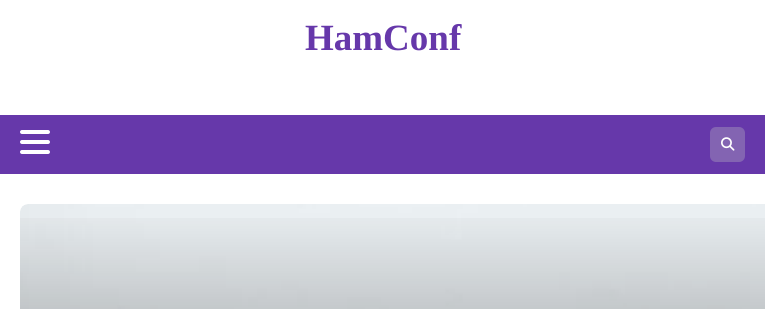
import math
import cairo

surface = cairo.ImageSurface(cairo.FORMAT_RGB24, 765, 309)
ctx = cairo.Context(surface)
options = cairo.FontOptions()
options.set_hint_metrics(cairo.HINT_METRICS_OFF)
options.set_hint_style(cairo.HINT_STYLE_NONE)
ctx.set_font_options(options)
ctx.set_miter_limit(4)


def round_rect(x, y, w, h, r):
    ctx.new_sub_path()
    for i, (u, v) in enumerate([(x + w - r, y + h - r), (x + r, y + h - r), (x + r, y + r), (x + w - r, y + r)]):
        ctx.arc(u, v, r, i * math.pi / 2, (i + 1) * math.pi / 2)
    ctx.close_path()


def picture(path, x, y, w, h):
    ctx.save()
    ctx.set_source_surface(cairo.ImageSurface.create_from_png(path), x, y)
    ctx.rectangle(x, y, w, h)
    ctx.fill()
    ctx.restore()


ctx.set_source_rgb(1, 1, 1)
ctx.paint()
ctx.select_font_face("Liberation Serif", cairo.FONT_SLANT_NORMAL, cairo.FONT_WEIGHT_BOLD)
ctx.set_font_size(37)
ctx.set_source_rgb(0.4, 0.22, 0.667)
ctx.move_to(305, 50)
ctx.show_text("HamConf")
ctx.rectangle(0, 115, 765, 59)
ctx.fill()
ctx.set_source_rgb(1, 1, 1)
round_rect(20, 130, 30, 4, 2)
ctx.fill()
round_rect(20, 140, 30, 4, 2)
ctx.fill()
round_rect(20, 150, 30, 4, 2)
ctx.fill()
ctx.set_source_rgb(0.514, 0.392, 0.698)
round_rect(710, 127, 35, 35, 6)
ctx.fill()
picture("img1.png", 721, 137, 14, 14)
gradient = cairo.LinearGradient(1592, 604, 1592, 204)
gradient.add_color_stop_rgba(0, 0, 0, 0, 1)
gradient.add_color_stop_rgba(1, 1, 1, 1, 1)
ctx.set_source(gradient)
round_rect(20, 204, 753, 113, 8)
ctx.fill()
picture("img2.png", 20, 204, 745, 105)
gradient = cairo.LinearGradient(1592, 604, 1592, 204)
gradient.add_color_stop_rgba(0, 0, 0, 0, 0.6)
gradient.add_color_stop_rgba(1, 0, 0, 0, 0)
ctx.set_source(gradient)
ctx.rectangle(20, 218, 745, 91)
ctx.fill()
surface.write_to_png("page.png")
